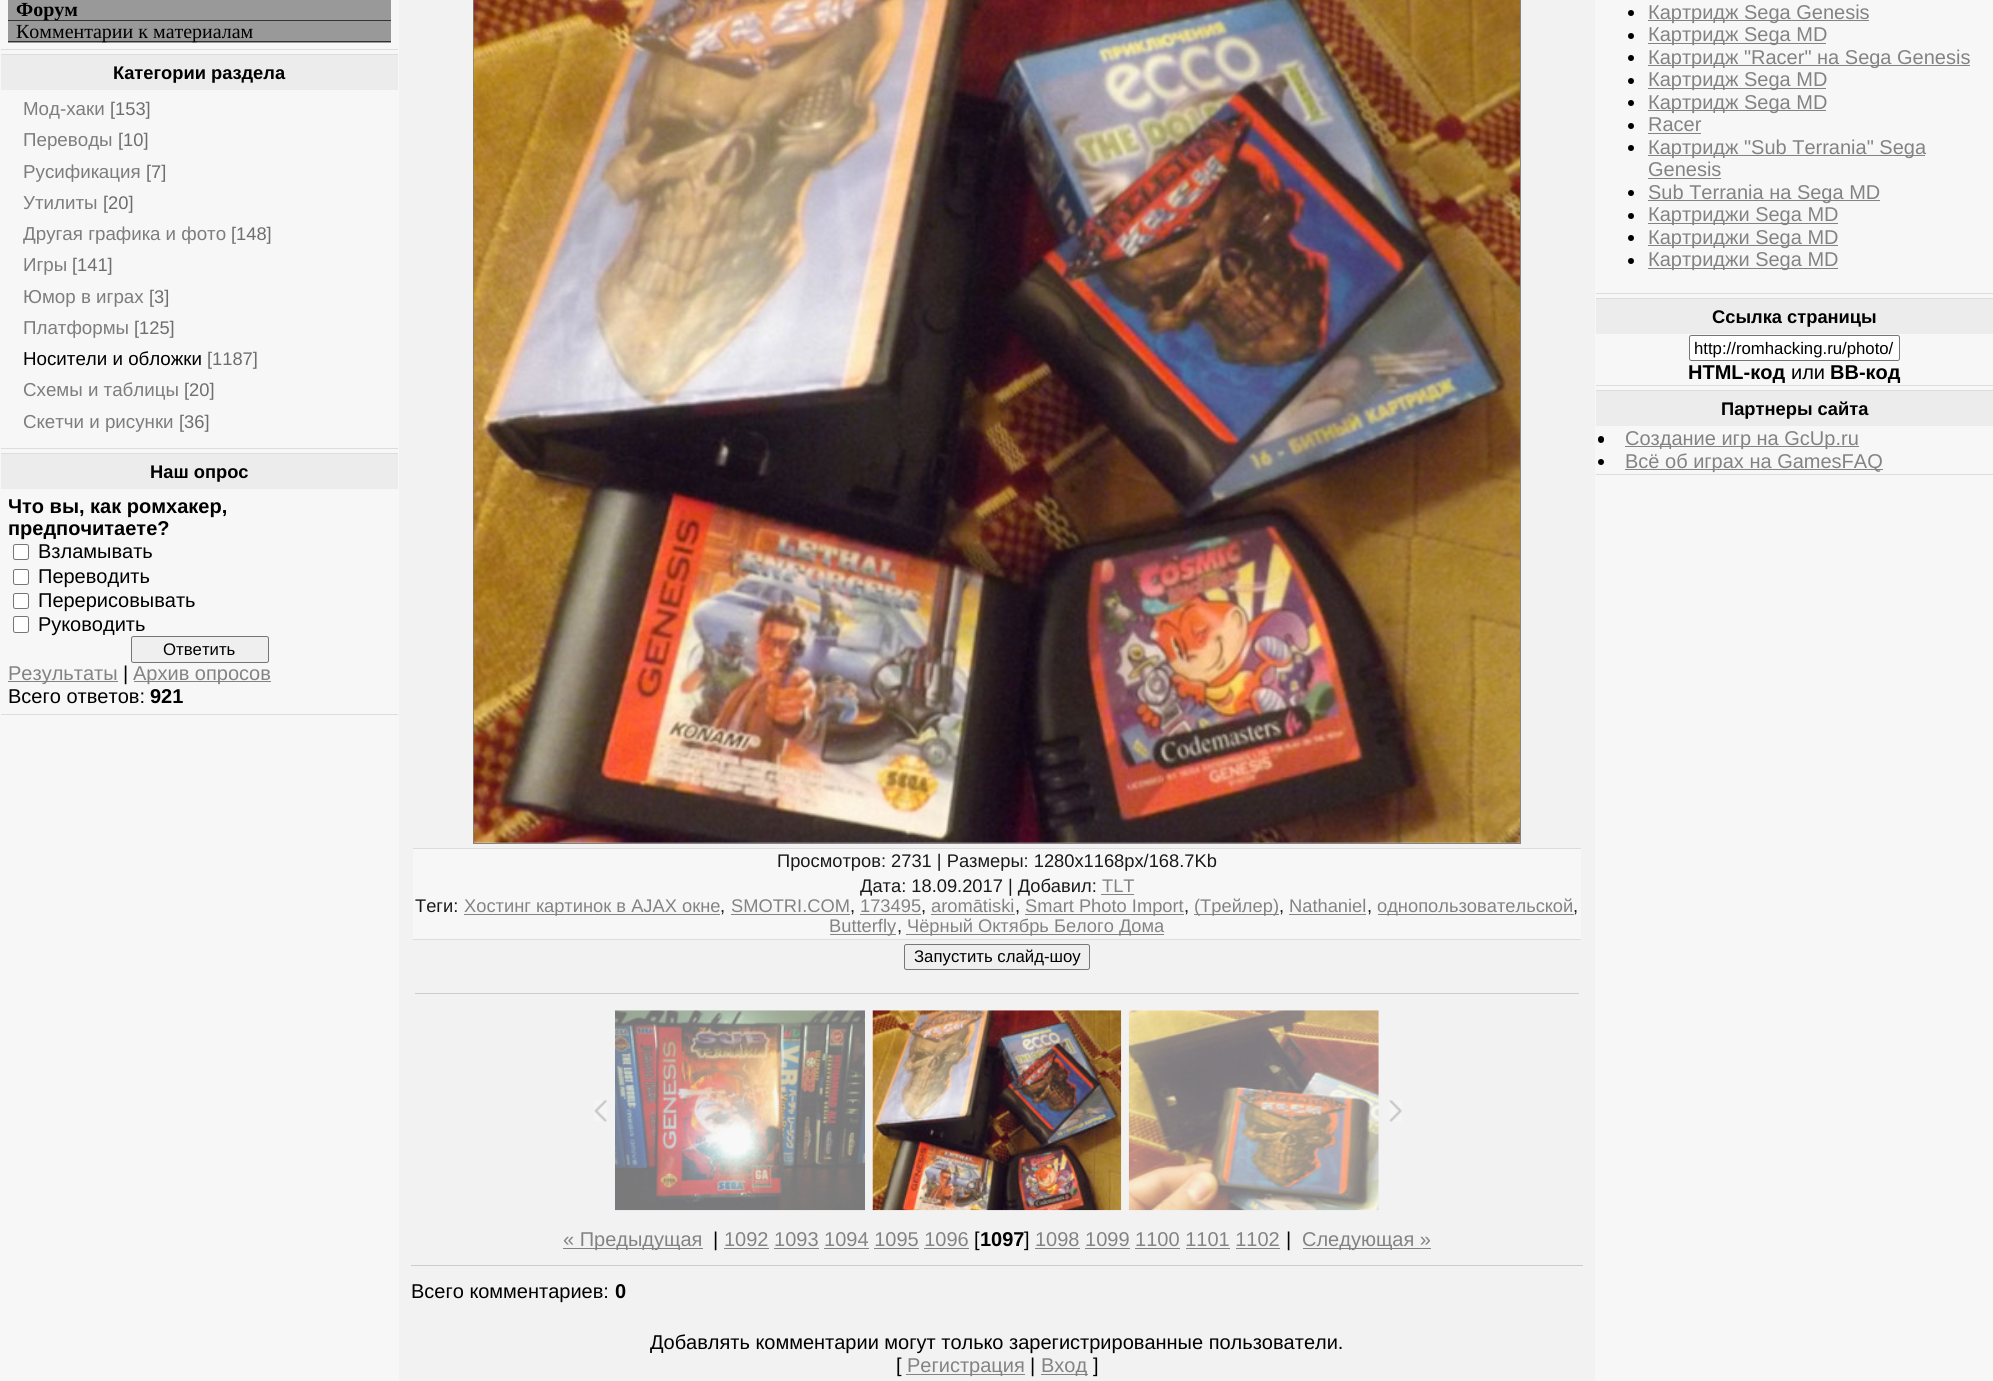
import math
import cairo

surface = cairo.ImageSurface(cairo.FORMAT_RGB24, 1993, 1381)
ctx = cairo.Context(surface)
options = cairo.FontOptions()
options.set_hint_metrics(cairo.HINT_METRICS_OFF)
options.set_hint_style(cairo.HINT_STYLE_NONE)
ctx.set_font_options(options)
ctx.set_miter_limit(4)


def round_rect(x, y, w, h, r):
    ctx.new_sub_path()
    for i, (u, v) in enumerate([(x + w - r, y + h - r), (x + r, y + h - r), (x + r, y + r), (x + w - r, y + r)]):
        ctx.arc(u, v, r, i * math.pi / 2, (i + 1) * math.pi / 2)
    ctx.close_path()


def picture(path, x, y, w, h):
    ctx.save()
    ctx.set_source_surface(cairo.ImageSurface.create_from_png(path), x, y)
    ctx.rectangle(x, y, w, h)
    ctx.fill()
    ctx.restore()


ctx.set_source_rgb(0.949, 0.949, 0.949)
ctx.paint()
ctx.set_source_rgb(0.965, 0.965, 0.965)
ctx.rectangle(0, 0, 399, 1381)
ctx.fill()
ctx.set_source_rgb(0.867, 0.867, 0.867)
ctx.rectangle(1, 49, 397, 1)
ctx.fill()
ctx.set_source_rgb(0.6, 0.6, 0.6)
ctx.rectangle(8, 0, 383, 20)
ctx.fill()
ctx.set_source_rgb(0.2, 0.2, 0.2)
ctx.rectangle(8, 20, 383, 1)
ctx.fill()
ctx.select_font_face("Liberation Serif", cairo.FONT_SLANT_NORMAL, cairo.FONT_WEIGHT_BOLD)
ctx.set_font_size(20)
ctx.set_source_rgb(0, 0, 0)
ctx.move_to(16, 16)
ctx.show_text("Форум")
ctx.set_source_rgb(0.6, 0.6, 0.6)
ctx.rectangle(8, 21, 383, 22)
ctx.fill()
ctx.set_source_rgb(0.2, 0.2, 0.2)
ctx.rectangle(8, 41, 383, 1)
ctx.fill()
ctx.select_font_face("Liberation Serif")
ctx.set_source_rgb(0, 0, 0)
ctx.move_to(16, 38)
ctx.show_text("Комментарии к материалам")
ctx.set_source_rgb(0.867, 0.867, 0.867)
ctx.rectangle(1, 54, 397, 1)
ctx.fill()
ctx.rectangle(1, 448, 397, 1)
ctx.fill()
ctx.set_source_rgb(0.922, 0.922, 0.922)
ctx.rectangle(1, 55, 397, 35)
ctx.fill()
ctx.select_font_face("Liberation Sans", cairo.FONT_SLANT_NORMAL, cairo.FONT_WEIGHT_BOLD)
ctx.set_font_size(18.3)
ctx.set_source_rgb(0, 0, 0)
ctx.move_to(113, 79)
ctx.show_text("Категории раздела")
ctx.select_font_face("Liberation Sans")
ctx.set_font_size(18.75)
ctx.set_source_rgb(0.49, 0.49, 0.49)
ctx.move_to(23, 115)
ctx.show_text("Мод-хаки")
ctx.set_font_size(18.3)
ctx.set_source_rgb(0.431, 0.431, 0.431)
ctx.move_to(110, 115)
ctx.show_text("[153]")
ctx.set_font_size(18.75)
ctx.set_source_rgb(0.49, 0.49, 0.49)
ctx.move_to(23, 146)
ctx.show_text("Переводы")
ctx.set_font_size(18.3)
ctx.set_source_rgb(0.431, 0.431, 0.431)
ctx.move_to(118, 146)
ctx.show_text("[10]")
ctx.set_font_size(18.75)
ctx.set_source_rgb(0.49, 0.49, 0.49)
ctx.move_to(23, 178)
ctx.show_text("Русификация")
ctx.set_font_size(18.3)
ctx.set_source_rgb(0.431, 0.431, 0.431)
ctx.move_to(146, 178)
ctx.show_text("[7]")
ctx.set_font_size(18.75)
ctx.set_source_rgb(0.49, 0.49, 0.49)
ctx.move_to(23, 209)
ctx.show_text("Утилиты")
ctx.set_font_size(18.3)
ctx.set_source_rgb(0.431, 0.431, 0.431)
ctx.move_to(103, 209)
ctx.show_text("[20]")
ctx.set_font_size(18.75)
ctx.set_source_rgb(0.49, 0.49, 0.49)
ctx.move_to(23, 240)
ctx.show_text("Другая графика и фото")
ctx.set_font_size(18.3)
ctx.set_source_rgb(0.431, 0.431, 0.431)
ctx.move_to(231, 240)
ctx.show_text("[148]")
ctx.set_font_size(18.75)
ctx.set_source_rgb(0.49, 0.49, 0.49)
ctx.move_to(23, 271)
ctx.show_text("Игры")
ctx.set_font_size(18.3)
ctx.set_source_rgb(0.431, 0.431, 0.431)
ctx.move_to(72, 271)
ctx.show_text("[141]")
ctx.set_font_size(18.75)
ctx.set_source_rgb(0.49, 0.49, 0.49)
ctx.move_to(23, 303)
ctx.show_text("Юмор в играх")
ctx.set_font_size(18.3)
ctx.set_source_rgb(0.431, 0.431, 0.431)
ctx.move_to(149, 303)
ctx.show_text("[3]")
ctx.set_font_size(18.75)
ctx.set_source_rgb(0.49, 0.49, 0.49)
ctx.move_to(23, 334)
ctx.show_text("Платформы")
ctx.set_font_size(18.3)
ctx.set_source_rgb(0.431, 0.431, 0.431)
ctx.move_to(134, 334)
ctx.show_text("[125]")
ctx.set_font_size(18.75)
ctx.set_source_rgb(0, 0, 0)
ctx.move_to(23, 365)
ctx.show_text("Носители и обложки")
ctx.set_font_size(18.3)
ctx.set_source_rgb(0.431, 0.431, 0.431)
ctx.move_to(207, 365)
ctx.show_text("[1187]")
ctx.set_font_size(18.75)
ctx.set_source_rgb(0.49, 0.49, 0.49)
ctx.move_to(23, 396)
ctx.show_text("Схемы и таблицы")
ctx.set_font_size(18.3)
ctx.set_source_rgb(0.431, 0.431, 0.431)
ctx.move_to(184, 396)
ctx.show_text("[20]")
ctx.set_font_size(18.75)
ctx.set_source_rgb(0.49, 0.49, 0.49)
ctx.move_to(23, 428)
ctx.show_text("Скетчи и рисунки")
ctx.set_font_size(18.3)
ctx.set_source_rgb(0.431, 0.431, 0.431)
ctx.move_to(179, 428)
ctx.show_text("[36]")
ctx.set_source_rgb(0.867, 0.867, 0.867)
ctx.rectangle(1, 453, 397, 1)
ctx.fill()
ctx.rectangle(1, 714, 397, 1)
ctx.fill()
ctx.set_source_rgb(0.922, 0.922, 0.922)
ctx.rectangle(1, 454, 397, 35)
ctx.fill()
ctx.select_font_face("Liberation Sans", cairo.FONT_SLANT_NORMAL, cairo.FONT_WEIGHT_BOLD)
ctx.set_source_rgb(0, 0, 0)
ctx.move_to(150, 478)
ctx.show_text("Наш опрос")
ctx.set_font_size(20)
ctx.move_to(8, 513)
ctx.show_text("Что вы, как ромхакер,")
ctx.move_to(8, 535)
ctx.show_text("предпочитаете?")
ctx.set_source_rgb(1, 1, 1)
round_rect(13.5, 544.5, 15, 15, 2)
ctx.fill_preserve()
ctx.set_source_rgb(0.463, 0.463, 0.463)
ctx.set_line_width(1)
ctx.stroke()
ctx.select_font_face("Liberation Sans")
ctx.set_source_rgb(0, 0, 0)
ctx.move_to(38, 558)
ctx.show_text("Взламывать")
ctx.set_source_rgb(1, 1, 1)
round_rect(13.5, 569.5, 15, 15, 2)
ctx.fill_preserve()
ctx.set_source_rgb(0.463, 0.463, 0.463)
ctx.stroke()
ctx.set_source_rgb(0, 0, 0)
ctx.move_to(38, 583)
ctx.show_text("Переводить")
ctx.set_source_rgb(1, 1, 1)
round_rect(13.5, 593.5, 15, 15, 2)
ctx.fill_preserve()
ctx.set_source_rgb(0.463, 0.463, 0.463)
ctx.stroke()
ctx.set_source_rgb(0, 0, 0)
ctx.move_to(38, 607)
ctx.show_text("Перерисовывать")
ctx.set_source_rgb(1, 1, 1)
round_rect(13.5, 616.5, 15, 16, 2)
ctx.fill_preserve()
ctx.set_source_rgb(0.463, 0.463, 0.463)
ctx.stroke()
ctx.set_source_rgb(0, 0, 0)
ctx.move_to(38, 631)
ctx.show_text("Руководить")
ctx.set_source_rgb(0.937, 0.937, 0.937)
round_rect(131.5, 636.5, 137, 26, 2)
ctx.fill_preserve()
ctx.set_source_rgb(0.463, 0.463, 0.463)
ctx.stroke()
ctx.set_font_size(16.75)
ctx.set_source_rgb(0, 0, 0)
ctx.move_to(163, 655)
ctx.show_text("Ответить")
ctx.set_source_rgb(0.514, 0.514, 0.514)
ctx.rectangle(8, 681, 110, 1)
ctx.fill()
ctx.set_font_size(20)
ctx.move_to(8, 680)
ctx.show_text("Результаты")
ctx.set_source_rgb(0, 0, 0)
ctx.move_to(123, 680)
ctx.show_text("|")
ctx.set_source_rgb(0.514, 0.514, 0.514)
ctx.rectangle(134, 681, 137, 1)
ctx.fill()
ctx.move_to(133, 680)
ctx.show_text("Архив опросов")
ctx.set_source_rgb(0, 0, 0)
ctx.move_to(8, 703)
ctx.show_text("Всего ответов:")
ctx.select_font_face("Liberation Sans", cairo.FONT_SLANT_NORMAL, cairo.FONT_WEIGHT_BOLD)
ctx.move_to(150, 703)
ctx.show_text("921")
ctx.set_source_rgb(0.965, 0.965, 0.965)
ctx.rectangle(1595, 0, 398, 1381)
ctx.fill()
ctx.set_source_rgb(0.867, 0.867, 0.867)
ctx.rectangle(1596, 293, 397, 1)
ctx.fill()
ctx.set_source_rgb(0, 0, 0)
ctx.arc(1631, 13, 3, 0, 2 * math.pi)
ctx.fill()
ctx.set_source_rgb(0.514, 0.514, 0.514)
ctx.rectangle(1648, 20, 221, 1)
ctx.fill()
ctx.select_font_face("Liberation Sans")
ctx.move_to(1648, 19)
ctx.show_text("Картридж Sega Genesis")
ctx.set_source_rgb(0, 0, 0)
ctx.new_path()
ctx.arc(1631, 36, 3, 0, 2 * math.pi)
ctx.fill()
ctx.set_source_rgb(0.514, 0.514, 0.514)
ctx.rectangle(1648, 43, 178, 1)
ctx.fill()
ctx.move_to(1648, 41)
ctx.show_text("Картридж Sega MD")
ctx.set_source_rgb(0, 0, 0)
ctx.new_path()
ctx.arc(1631, 58, 3, 0, 2 * math.pi)
ctx.fill()
ctx.set_source_rgb(0.514, 0.514, 0.514)
ctx.rectangle(1648, 65, 322, 1)
ctx.fill()
ctx.move_to(1648, 64)
ctx.show_text("Картридж \"Racer\" на Sega Genesis")
ctx.set_source_rgb(0, 0, 0)
ctx.new_path()
ctx.arc(1631, 81, 3, 0, 2 * math.pi)
ctx.fill()
ctx.set_source_rgb(0.514, 0.514, 0.514)
ctx.rectangle(1648, 88, 178, 1)
ctx.fill()
ctx.move_to(1648, 86)
ctx.show_text("Картридж Sega MD")
ctx.set_source_rgb(0, 0, 0)
ctx.new_path()
ctx.arc(1631, 103, 3, 0, 2 * math.pi)
ctx.fill()
ctx.set_source_rgb(0.514, 0.514, 0.514)
ctx.rectangle(1648, 110, 178, 1)
ctx.fill()
ctx.move_to(1648, 109)
ctx.show_text("Картридж Sega MD")
ctx.set_source_rgb(0, 0, 0)
ctx.new_path()
ctx.arc(1631, 126, 3, 0, 2 * math.pi)
ctx.fill()
ctx.set_source_rgb(0.514, 0.514, 0.514)
ctx.move_to(1648, 131)
ctx.show_text("Racer")
ctx.rectangle(1648, 133, 53, 1)
ctx.fill()
ctx.set_source_rgb(0, 0, 0)
ctx.arc(1631, 148, 3, 0, 2 * math.pi)
ctx.fill()
ctx.set_source_rgb(0.514, 0.514, 0.514)
ctx.rectangle(1648, 155, 277, 1)
ctx.fill()
ctx.move_to(1648, 154)
ctx.show_text("Картридж \"Sub Terrania\" Sega")
ctx.move_to(1648, 176)
ctx.show_text("Genesis")
ctx.rectangle(1648, 178, 73, 1)
ctx.fill()
ctx.set_source_rgb(0, 0, 0)
ctx.arc(1631, 193, 3, 0, 2 * math.pi)
ctx.fill()
ctx.set_source_rgb(0.514, 0.514, 0.514)
ctx.rectangle(1648, 200, 232, 1)
ctx.fill()
ctx.move_to(1648, 199)
ctx.show_text("Sub Terrania на Sega MD")
ctx.set_source_rgb(0, 0, 0)
ctx.new_path()
ctx.arc(1631, 216, 3, 0, 2 * math.pi)
ctx.fill()
ctx.set_source_rgb(0.514, 0.514, 0.514)
ctx.rectangle(1648, 223, 190, 1)
ctx.fill()
ctx.move_to(1648, 221)
ctx.show_text("Картриджи Sega MD")
ctx.set_source_rgb(0, 0, 0)
ctx.new_path()
ctx.arc(1631, 238, 3, 0, 2 * math.pi)
ctx.fill()
ctx.set_source_rgb(0.514, 0.514, 0.514)
ctx.rectangle(1648, 245, 190, 1)
ctx.fill()
ctx.move_to(1648, 244)
ctx.show_text("Картриджи Sega MD")
ctx.set_source_rgb(0, 0, 0)
ctx.new_path()
ctx.arc(1631, 261, 3, 0, 2 * math.pi)
ctx.fill()
ctx.set_source_rgb(0.514, 0.514, 0.514)
ctx.rectangle(1648, 268, 190, 1)
ctx.fill()
ctx.move_to(1648, 266)
ctx.show_text("Картриджи Sega MD")
ctx.set_source_rgb(0.867, 0.867, 0.867)
ctx.rectangle(1596, 298, 397, 1)
ctx.fill()
ctx.rectangle(1596, 385, 397, 1)
ctx.fill()
ctx.set_source_rgb(0.922, 0.922, 0.922)
ctx.rectangle(1596, 299, 397, 35)
ctx.fill()
ctx.select_font_face("Liberation Sans", cairo.FONT_SLANT_NORMAL, cairo.FONT_WEIGHT_BOLD)
ctx.set_font_size(18.3)
ctx.set_source_rgb(0, 0, 0)
ctx.move_to(1712, 323)
ctx.show_text("Ссылка страницы")
ctx.set_source_rgb(1, 1, 1)
round_rect(1689.5, 335.5, 210, 25, 2)
ctx.fill_preserve()
ctx.set_source_rgb(0.463, 0.463, 0.463)
ctx.stroke()
ctx.select_font_face("Liberation Sans")
ctx.set_font_size(16.75)
ctx.set_source_rgb(0, 0, 0)
ctx.move_to(1694, 354)
ctx.show_text("http://romhacking.ru/photo/")
ctx.select_font_face("Liberation Sans", cairo.FONT_SLANT_NORMAL, cairo.FONT_WEIGHT_BOLD)
ctx.set_font_size(20)
ctx.move_to(1688, 379)
ctx.show_text("HTML-код")
ctx.select_font_face("Liberation Sans")
ctx.move_to(1791, 379)
ctx.show_text("или")
ctx.select_font_face("Liberation Sans", cairo.FONT_SLANT_NORMAL, cairo.FONT_WEIGHT_BOLD)
ctx.move_to(1830, 379)
ctx.show_text("BB-код")
ctx.set_source_rgb(0.867, 0.867, 0.867)
ctx.rectangle(1596, 390, 397, 1)
ctx.fill()
ctx.rectangle(1596, 474, 397, 1)
ctx.fill()
ctx.set_source_rgb(0.922, 0.922, 0.922)
ctx.rectangle(1596, 391, 397, 35)
ctx.fill()
ctx.set_font_size(18.3)
ctx.set_source_rgb(0, 0, 0)
ctx.move_to(1721, 415)
ctx.show_text("Партнеры сайта")
round_rect(1598, 436, 6, 7, 3)
ctx.fill()
ctx.set_source_rgb(0.514, 0.514, 0.514)
ctx.rectangle(1625, 446, 234, 1)
ctx.fill()
ctx.select_font_face("Liberation Sans")
ctx.set_font_size(20)
ctx.move_to(1625, 445)
ctx.show_text("Создание игр на GcUp.ru")
ctx.set_source_rgb(0, 0, 0)
ctx.new_path()
ctx.arc(1601, 462, 3, 0, 2 * math.pi)
ctx.fill()
ctx.set_source_rgb(0.514, 0.514, 0.514)
ctx.rectangle(1625, 469, 258, 1)
ctx.fill()
ctx.move_to(1625, 468)
ctx.show_text("Всё об играх на GamesFAQ")
ctx.rectangle(473.5, -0.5, 1047, 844)
ctx.stroke()
picture("img1.png", 473, 0, 1047, 843)
ctx.set_source_rgb(0.965, 0.965, 0.965)
ctx.rectangle(413, 849, 1168, 90)
ctx.fill()
ctx.set_source_rgb(0.867, 0.867, 0.867)
ctx.rectangle(413, 848, 1168, 1)
ctx.fill()
ctx.rectangle(413, 939, 1168, 1)
ctx.fill()
ctx.set_font_size(18.3)
ctx.set_source_rgb(0.102, 0.102, 0.102)
ctx.move_to(777, 867)
ctx.show_text("Просмотров: 2731 | Размеры: 1280x1168px/168.7Kb")
ctx.move_to(860, 892)
ctx.show_text("Дата: 18.09.2017 | Добавил:")
ctx.set_source_rgb(0.514, 0.514, 0.514)
ctx.move_to(1102, 892)
ctx.show_text("TLT")
ctx.rectangle(1101, 894, 33, 1)
ctx.fill()
ctx.set_source_rgb(0.102, 0.102, 0.102)
ctx.move_to(415, 912)
ctx.show_text("Теги:")
ctx.set_source_rgb(0.514, 0.514, 0.514)
ctx.rectangle(464, 914, 256, 1)
ctx.fill()
ctx.move_to(464, 912)
ctx.show_text("Хостинг картинок в AJAX окне")
ctx.set_source_rgb(0.102, 0.102, 0.102)
ctx.move_to(720, 912)
ctx.show_text(",")
ctx.set_source_rgb(0.514, 0.514, 0.514)
ctx.move_to(731, 912)
ctx.show_text("SMOTRI.COM")
ctx.set_source_rgb(0.102, 0.102, 0.102)
ctx.move_to(850, 912)
ctx.show_text(",")
ctx.set_source_rgb(0.514, 0.514, 0.514)
ctx.rectangle(731, 914, 119, 1)
ctx.fill()
ctx.move_to(860, 912)
ctx.show_text("173495")
ctx.set_source_rgb(0.102, 0.102, 0.102)
ctx.move_to(921, 912)
ctx.show_text(",")
ctx.set_source_rgb(0.514, 0.514, 0.514)
ctx.rectangle(860, 914, 61, 1)
ctx.fill()
ctx.move_to(931, 912)
ctx.show_text("aromātiski")
ctx.set_source_rgb(0.102, 0.102, 0.102)
ctx.move_to(1015, 912)
ctx.show_text(",")
ctx.set_source_rgb(0.514, 0.514, 0.514)
ctx.rectangle(931, 914, 84, 1)
ctx.fill()
ctx.rectangle(1025, 914, 159, 1)
ctx.fill()
ctx.move_to(1025, 912)
ctx.show_text("Smart Photo Import")
ctx.set_source_rgb(0.102, 0.102, 0.102)
ctx.move_to(1184, 912)
ctx.show_text(",")
ctx.set_source_rgb(0.514, 0.514, 0.514)
ctx.rectangle(1194, 914, 85, 1)
ctx.fill()
ctx.move_to(1194, 912)
ctx.show_text("(Трейлер)")
ctx.set_source_rgb(0.102, 0.102, 0.102)
ctx.move_to(1279, 912)
ctx.show_text(",")
ctx.set_source_rgb(0.514, 0.514, 0.514)
ctx.move_to(1289, 912)
ctx.show_text("Nathaniel")
ctx.set_source_rgb(0.102, 0.102, 0.102)
ctx.move_to(1367, 912)
ctx.show_text(",")
ctx.set_source_rgb(0.514, 0.514, 0.514)
ctx.rectangle(1289, 914, 77, 1)
ctx.fill()
ctx.rectangle(1378, 914, 196, 1)
ctx.fill()
ctx.move_to(1377, 912)
ctx.show_text("однопользовательской")
ctx.set_source_rgb(0.102, 0.102, 0.102)
ctx.move_to(1573, 912)
ctx.show_text(",")
ctx.set_source_rgb(0.514, 0.514, 0.514)
ctx.rectangle(830, 934, 66, 1)
ctx.fill()
ctx.move_to(829, 932)
ctx.show_text("Butterfly")
ctx.set_source_rgb(0.102, 0.102, 0.102)
ctx.move_to(897, 932)
ctx.show_text(",")
ctx.set_source_rgb(0.514, 0.514, 0.514)
ctx.rectangle(906, 934, 258, 1)
ctx.fill()
ctx.move_to(907, 932)
ctx.show_text("Чёрный Октябрь Белого Дома")
ctx.set_source_rgb(0.937, 0.937, 0.937)
round_rect(904.5, 944.5, 185, 25, 2)
ctx.fill_preserve()
ctx.set_source_rgb(0.463, 0.463, 0.463)
ctx.stroke()
ctx.set_font_size(16.75)
ctx.set_source_rgb(0, 0, 0)
ctx.move_to(914, 962)
ctx.show_text("Запустить слайд-шоу")
ctx.set_source_rgb(0.8, 0.8, 0.8)
ctx.rectangle(415, 993, 1164, 1)
ctx.fill()
picture("img2.png", 594, 1100, 13, 22)
picture("img3.png", 615, 1010, 250, 201)
picture("img4.png", 872, 1010, 250, 201)
picture("img5.png", 1128, 1010, 251, 201)
picture("img6.png", 1389, 1100, 13, 22)
ctx.set_source_rgb(0.514, 0.514, 0.514)
ctx.rectangle(563, 1248, 140, 1)
ctx.fill()
ctx.set_font_size(20)
ctx.move_to(563, 1246)
ctx.show_text("« Предыдущая")
ctx.set_source_rgb(0, 0, 0)
ctx.move_to(713, 1246)
ctx.show_text("|")
ctx.set_source_rgb(0.514, 0.514, 0.514)
ctx.move_to(724, 1246)
ctx.show_text("1092 1093 1094 1095 1096")
ctx.rectangle(724, 1248, 45, 1)
ctx.fill()
ctx.set_source_rgb(0, 0, 0)
ctx.move_to(974, 1246)
ctx.show_text("[")
ctx.select_font_face("Liberation Sans", cairo.FONT_SLANT_NORMAL, cairo.FONT_WEIGHT_BOLD)
ctx.move_to(980, 1246)
ctx.show_text("1097")
ctx.select_font_face("Liberation Sans")
ctx.move_to(1024, 1246)
ctx.show_text("]")
ctx.set_source_rgb(0.514, 0.514, 0.514)
ctx.move_to(1035, 1246)
ctx.show_text("1098 1099 1100 1101 1102")
ctx.rectangle(1035, 1248, 45, 1)
ctx.fill()
ctx.set_source_rgb(0, 0, 0)
ctx.move_to(1286, 1246)
ctx.show_text("|")
ctx.set_source_rgb(0.514, 0.514, 0.514)
ctx.rectangle(1303, 1248, 128, 1)
ctx.fill()
ctx.move_to(1302, 1246)
ctx.show_text("Следующая »")
ctx.rectangle(774, 1248, 45, 1)
ctx.fill()
ctx.rectangle(824, 1248, 45, 1)
ctx.fill()
ctx.rectangle(874, 1248, 45, 1)
ctx.fill()
ctx.rectangle(924, 1248, 45, 1)
ctx.fill()
ctx.rectangle(1085, 1248, 45, 1)
ctx.fill()
ctx.rectangle(1135, 1248, 45, 1)
ctx.fill()
ctx.rectangle(1186, 1248, 44, 1)
ctx.fill()
ctx.rectangle(1236, 1248, 44, 1)
ctx.fill()
ctx.set_source_rgb(0.8, 0.8, 0.8)
ctx.rectangle(411, 1265, 1172, 1)
ctx.fill()
ctx.set_source_rgb(0, 0, 0)
ctx.move_to(411, 1298)
ctx.show_text("Всего комментариев:")
ctx.select_font_face("Liberation Sans", cairo.FONT_SLANT_NORMAL, cairo.FONT_WEIGHT_BOLD)
ctx.move_to(615, 1298)
ctx.show_text("0")
ctx.select_font_face("Liberation Sans")
ctx.move_to(650, 1349)
ctx.show_text("Добавлять комментарии могут только зарегистрированные пользователи.")
ctx.move_to(896, 1372)
ctx.show_text("[")
ctx.set_source_rgb(0.514, 0.514, 0.514)
ctx.rectangle(906, 1374, 119, 1)
ctx.fill()
ctx.move_to(907, 1372)
ctx.show_text("Регистрация")
ctx.set_source_rgb(0, 0, 0)
ctx.move_to(1030, 1372)
ctx.show_text("|")
ctx.set_source_rgb(0.514, 0.514, 0.514)
ctx.rectangle(1041, 1374, 47, 1)
ctx.fill()
ctx.move_to(1041, 1372)
ctx.show_text("Вход")
ctx.set_source_rgb(0, 0, 0)
ctx.move_to(1093, 1372)
ctx.show_text("]")
surface.write_to_png("page.png")
